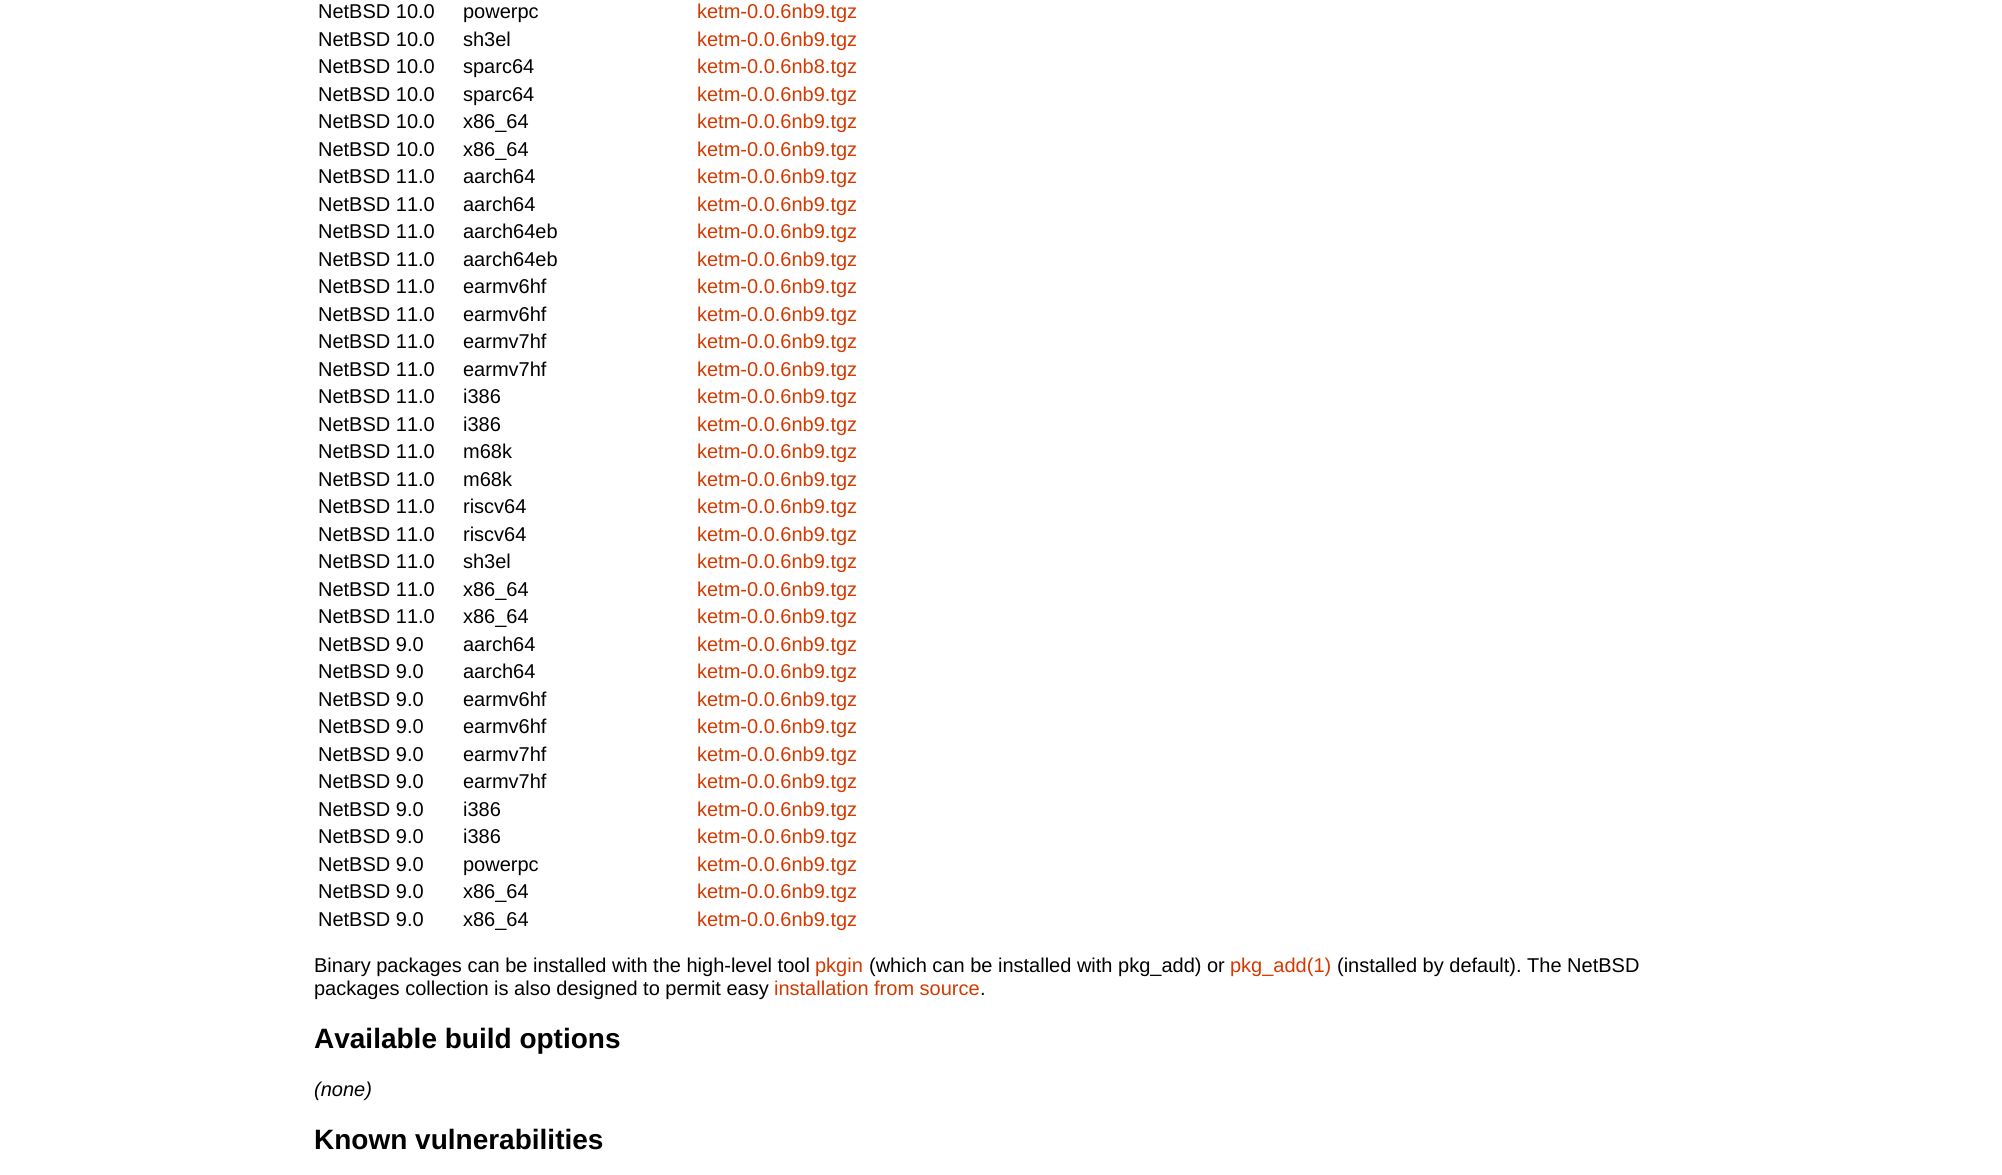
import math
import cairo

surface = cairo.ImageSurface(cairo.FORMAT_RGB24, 2002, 1175)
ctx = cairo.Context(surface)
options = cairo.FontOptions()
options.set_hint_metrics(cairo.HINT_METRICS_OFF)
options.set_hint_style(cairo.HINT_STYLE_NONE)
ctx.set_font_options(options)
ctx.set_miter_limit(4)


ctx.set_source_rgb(1, 1, 1)
ctx.paint()
ctx.select_font_face("Liberation Sans")
ctx.set_font_size(20)
ctx.set_source_rgb(0, 0, 0)
ctx.move_to(318, 18)
ctx.show_text("NetBSD 10.0")
ctx.move_to(463, 18)
ctx.show_text("powerpc")
ctx.set_source_rgb(0.831, 0.224, 0)
ctx.move_to(697, 18)
ctx.show_text("ketm-0.0.6nb9.tgz")
ctx.set_source_rgb(0, 0, 0)
ctx.move_to(318, 46)
ctx.show_text("NetBSD 10.0")
ctx.move_to(463, 46)
ctx.show_text("sh3el")
ctx.set_source_rgb(0.831, 0.224, 0)
ctx.move_to(697, 46)
ctx.show_text("ketm-0.0.6nb9.tgz")
ctx.set_source_rgb(0, 0, 0)
ctx.move_to(318, 73)
ctx.show_text("NetBSD 10.0")
ctx.move_to(463, 73)
ctx.show_text("sparc64")
ctx.set_source_rgb(0.831, 0.224, 0)
ctx.move_to(697, 73)
ctx.show_text("ketm-0.0.6nb8.tgz")
ctx.set_source_rgb(0, 0, 0)
ctx.move_to(318, 101)
ctx.show_text("NetBSD 10.0")
ctx.move_to(463, 101)
ctx.show_text("sparc64")
ctx.set_source_rgb(0.831, 0.224, 0)
ctx.move_to(697, 101)
ctx.show_text("ketm-0.0.6nb9.tgz")
ctx.set_source_rgb(0, 0, 0)
ctx.move_to(318, 128)
ctx.show_text("NetBSD 10.0")
ctx.move_to(463, 128)
ctx.show_text("x86_64")
ctx.set_source_rgb(0.831, 0.224, 0)
ctx.move_to(697, 128)
ctx.show_text("ketm-0.0.6nb9.tgz")
ctx.set_source_rgb(0, 0, 0)
ctx.move_to(318, 156)
ctx.show_text("NetBSD 10.0")
ctx.move_to(463, 156)
ctx.show_text("x86_64")
ctx.set_source_rgb(0.831, 0.224, 0)
ctx.move_to(697, 156)
ctx.show_text("ketm-0.0.6nb9.tgz")
ctx.set_source_rgb(0, 0, 0)
ctx.move_to(318, 183)
ctx.show_text("NetBSD 11.0")
ctx.move_to(463, 183)
ctx.show_text("aarch64")
ctx.set_source_rgb(0.831, 0.224, 0)
ctx.move_to(697, 183)
ctx.show_text("ketm-0.0.6nb9.tgz")
ctx.set_source_rgb(0, 0, 0)
ctx.move_to(318, 211)
ctx.show_text("NetBSD 11.0")
ctx.move_to(463, 211)
ctx.show_text("aarch64")
ctx.set_source_rgb(0.831, 0.224, 0)
ctx.move_to(697, 211)
ctx.show_text("ketm-0.0.6nb9.tgz")
ctx.set_source_rgb(0, 0, 0)
ctx.move_to(318, 238)
ctx.show_text("NetBSD 11.0")
ctx.move_to(463, 238)
ctx.show_text("aarch64eb")
ctx.set_source_rgb(0.831, 0.224, 0)
ctx.move_to(697, 238)
ctx.show_text("ketm-0.0.6nb9.tgz")
ctx.set_source_rgb(0, 0, 0)
ctx.move_to(318, 266)
ctx.show_text("NetBSD 11.0")
ctx.move_to(463, 266)
ctx.show_text("aarch64eb")
ctx.set_source_rgb(0.831, 0.224, 0)
ctx.move_to(697, 266)
ctx.show_text("ketm-0.0.6nb9.tgz")
ctx.set_source_rgb(0, 0, 0)
ctx.move_to(318, 293)
ctx.show_text("NetBSD 11.0")
ctx.move_to(463, 293)
ctx.show_text("earmv6hf")
ctx.set_source_rgb(0.831, 0.224, 0)
ctx.move_to(697, 293)
ctx.show_text("ketm-0.0.6nb9.tgz")
ctx.set_source_rgb(0, 0, 0)
ctx.move_to(318, 321)
ctx.show_text("NetBSD 11.0")
ctx.move_to(463, 321)
ctx.show_text("earmv6hf")
ctx.set_source_rgb(0.831, 0.224, 0)
ctx.move_to(697, 321)
ctx.show_text("ketm-0.0.6nb9.tgz")
ctx.set_source_rgb(0, 0, 0)
ctx.move_to(318, 348)
ctx.show_text("NetBSD 11.0")
ctx.move_to(463, 348)
ctx.show_text("earmv7hf")
ctx.set_source_rgb(0.831, 0.224, 0)
ctx.move_to(697, 348)
ctx.show_text("ketm-0.0.6nb9.tgz")
ctx.set_source_rgb(0, 0, 0)
ctx.move_to(318, 376)
ctx.show_text("NetBSD 11.0")
ctx.move_to(463, 376)
ctx.show_text("earmv7hf")
ctx.set_source_rgb(0.831, 0.224, 0)
ctx.move_to(697, 376)
ctx.show_text("ketm-0.0.6nb9.tgz")
ctx.set_source_rgb(0, 0, 0)
ctx.move_to(318, 403)
ctx.show_text("NetBSD 11.0")
ctx.move_to(463, 403)
ctx.show_text("i386")
ctx.set_source_rgb(0.831, 0.224, 0)
ctx.move_to(697, 403)
ctx.show_text("ketm-0.0.6nb9.tgz")
ctx.set_source_rgb(0, 0, 0)
ctx.move_to(318, 431)
ctx.show_text("NetBSD 11.0")
ctx.move_to(463, 431)
ctx.show_text("i386")
ctx.set_source_rgb(0.831, 0.224, 0)
ctx.move_to(697, 431)
ctx.show_text("ketm-0.0.6nb9.tgz")
ctx.set_source_rgb(0, 0, 0)
ctx.move_to(318, 458)
ctx.show_text("NetBSD 11.0")
ctx.move_to(463, 458)
ctx.show_text("m68k")
ctx.set_source_rgb(0.831, 0.224, 0)
ctx.move_to(697, 458)
ctx.show_text("ketm-0.0.6nb9.tgz")
ctx.set_source_rgb(0, 0, 0)
ctx.move_to(318, 486)
ctx.show_text("NetBSD 11.0")
ctx.move_to(463, 486)
ctx.show_text("m68k")
ctx.set_source_rgb(0.831, 0.224, 0)
ctx.move_to(697, 486)
ctx.show_text("ketm-0.0.6nb9.tgz")
ctx.set_source_rgb(0, 0, 0)
ctx.move_to(318, 513)
ctx.show_text("NetBSD 11.0")
ctx.move_to(463, 513)
ctx.show_text("riscv64")
ctx.set_source_rgb(0.831, 0.224, 0)
ctx.move_to(697, 513)
ctx.show_text("ketm-0.0.6nb9.tgz")
ctx.set_source_rgb(0, 0, 0)
ctx.move_to(318, 541)
ctx.show_text("NetBSD 11.0")
ctx.move_to(463, 541)
ctx.show_text("riscv64")
ctx.set_source_rgb(0.831, 0.224, 0)
ctx.move_to(697, 541)
ctx.show_text("ketm-0.0.6nb9.tgz")
ctx.set_source_rgb(0, 0, 0)
ctx.move_to(318, 568)
ctx.show_text("NetBSD 11.0")
ctx.move_to(463, 568)
ctx.show_text("sh3el")
ctx.set_source_rgb(0.831, 0.224, 0)
ctx.move_to(697, 568)
ctx.show_text("ketm-0.0.6nb9.tgz")
ctx.set_source_rgb(0, 0, 0)
ctx.move_to(318, 596)
ctx.show_text("NetBSD 11.0")
ctx.move_to(463, 596)
ctx.show_text("x86_64")
ctx.set_source_rgb(0.831, 0.224, 0)
ctx.move_to(697, 596)
ctx.show_text("ketm-0.0.6nb9.tgz")
ctx.set_source_rgb(0, 0, 0)
ctx.move_to(318, 623)
ctx.show_text("NetBSD 11.0")
ctx.move_to(463, 623)
ctx.show_text("x86_64")
ctx.set_source_rgb(0.831, 0.224, 0)
ctx.move_to(697, 623)
ctx.show_text("ketm-0.0.6nb9.tgz")
ctx.set_source_rgb(0, 0, 0)
ctx.move_to(318, 651)
ctx.show_text("NetBSD 9.0")
ctx.move_to(463, 651)
ctx.show_text("aarch64")
ctx.set_source_rgb(0.831, 0.224, 0)
ctx.move_to(697, 651)
ctx.show_text("ketm-0.0.6nb9.tgz")
ctx.set_source_rgb(0, 0, 0)
ctx.move_to(318, 678)
ctx.show_text("NetBSD 9.0")
ctx.move_to(463, 678)
ctx.show_text("aarch64")
ctx.set_source_rgb(0.831, 0.224, 0)
ctx.move_to(697, 678)
ctx.show_text("ketm-0.0.6nb9.tgz")
ctx.set_source_rgb(0, 0, 0)
ctx.move_to(318, 706)
ctx.show_text("NetBSD 9.0")
ctx.move_to(463, 706)
ctx.show_text("earmv6hf")
ctx.set_source_rgb(0.831, 0.224, 0)
ctx.move_to(697, 706)
ctx.show_text("ketm-0.0.6nb9.tgz")
ctx.set_source_rgb(0, 0, 0)
ctx.move_to(318, 733)
ctx.show_text("NetBSD 9.0")
ctx.move_to(463, 733)
ctx.show_text("earmv6hf")
ctx.set_source_rgb(0.831, 0.224, 0)
ctx.move_to(697, 733)
ctx.show_text("ketm-0.0.6nb9.tgz")
ctx.set_source_rgb(0, 0, 0)
ctx.move_to(318, 761)
ctx.show_text("NetBSD 9.0")
ctx.move_to(463, 761)
ctx.show_text("earmv7hf")
ctx.set_source_rgb(0.831, 0.224, 0)
ctx.move_to(697, 761)
ctx.show_text("ketm-0.0.6nb9.tgz")
ctx.set_source_rgb(0, 0, 0)
ctx.move_to(318, 788)
ctx.show_text("NetBSD 9.0")
ctx.move_to(463, 788)
ctx.show_text("earmv7hf")
ctx.set_source_rgb(0.831, 0.224, 0)
ctx.move_to(697, 788)
ctx.show_text("ketm-0.0.6nb9.tgz")
ctx.set_source_rgb(0, 0, 0)
ctx.move_to(318, 816)
ctx.show_text("NetBSD 9.0")
ctx.move_to(463, 816)
ctx.show_text("i386")
ctx.set_source_rgb(0.831, 0.224, 0)
ctx.move_to(697, 816)
ctx.show_text("ketm-0.0.6nb9.tgz")
ctx.set_source_rgb(0, 0, 0)
ctx.move_to(318, 843)
ctx.show_text("NetBSD 9.0")
ctx.move_to(463, 843)
ctx.show_text("i386")
ctx.set_source_rgb(0.831, 0.224, 0)
ctx.move_to(697, 843)
ctx.show_text("ketm-0.0.6nb9.tgz")
ctx.set_source_rgb(0, 0, 0)
ctx.move_to(318, 871)
ctx.show_text("NetBSD 9.0")
ctx.move_to(463, 871)
ctx.show_text("powerpc")
ctx.set_source_rgb(0.831, 0.224, 0)
ctx.move_to(697, 871)
ctx.show_text("ketm-0.0.6nb9.tgz")
ctx.set_source_rgb(0, 0, 0)
ctx.move_to(318, 898)
ctx.show_text("NetBSD 9.0")
ctx.move_to(463, 898)
ctx.show_text("x86_64")
ctx.set_source_rgb(0.831, 0.224, 0)
ctx.move_to(697, 898)
ctx.show_text("ketm-0.0.6nb9.tgz")
ctx.set_source_rgb(0, 0, 0)
ctx.move_to(318, 926)
ctx.show_text("NetBSD 9.0")
ctx.move_to(463, 926)
ctx.show_text("x86_64")
ctx.set_source_rgb(0.831, 0.224, 0)
ctx.move_to(697, 926)
ctx.show_text("ketm-0.0.6nb9.tgz")
ctx.set_source_rgb(0, 0, 0)
ctx.move_to(314, 972)
ctx.show_text("Binary packages can be installed with the high-level tool")
ctx.set_source_rgb(0.831, 0.224, 0)
ctx.move_to(815, 972)
ctx.show_text("pkgin")
ctx.set_source_rgb(0, 0, 0)
ctx.move_to(869, 972)
ctx.show_text("(which can be installed with pkg_add) or")
ctx.set_source_rgb(0.831, 0.224, 0)
ctx.move_to(1230, 972)
ctx.show_text("pkg_add(1)")
ctx.set_source_rgb(0, 0, 0)
ctx.move_to(1337, 972)
ctx.show_text("(installed by default). The NetBSD")
ctx.move_to(314, 995)
ctx.show_text("packages collection is also designed to permit easy")
ctx.set_source_rgb(0.831, 0.224, 0)
ctx.move_to(774, 995)
ctx.show_text("installation from source")
ctx.set_source_rgb(0, 0, 0)
ctx.move_to(980, 995)
ctx.show_text(".")
ctx.select_font_face("Liberation Sans", cairo.FONT_SLANT_NORMAL, cairo.FONT_WEIGHT_BOLD)
ctx.set_font_size(28)
ctx.move_to(314, 1048)
ctx.show_text("Available build options")
ctx.select_font_face("Liberation Sans", cairo.FONT_SLANT_ITALIC)
ctx.set_font_size(20)
ctx.move_to(314, 1096)
ctx.show_text("(none)")
ctx.select_font_face("Liberation Sans", cairo.FONT_SLANT_NORMAL, cairo.FONT_WEIGHT_BOLD)
ctx.set_font_size(28)
ctx.move_to(314, 1149)
ctx.show_text("Known vulnerabilities")
surface.write_to_png("page.png")
